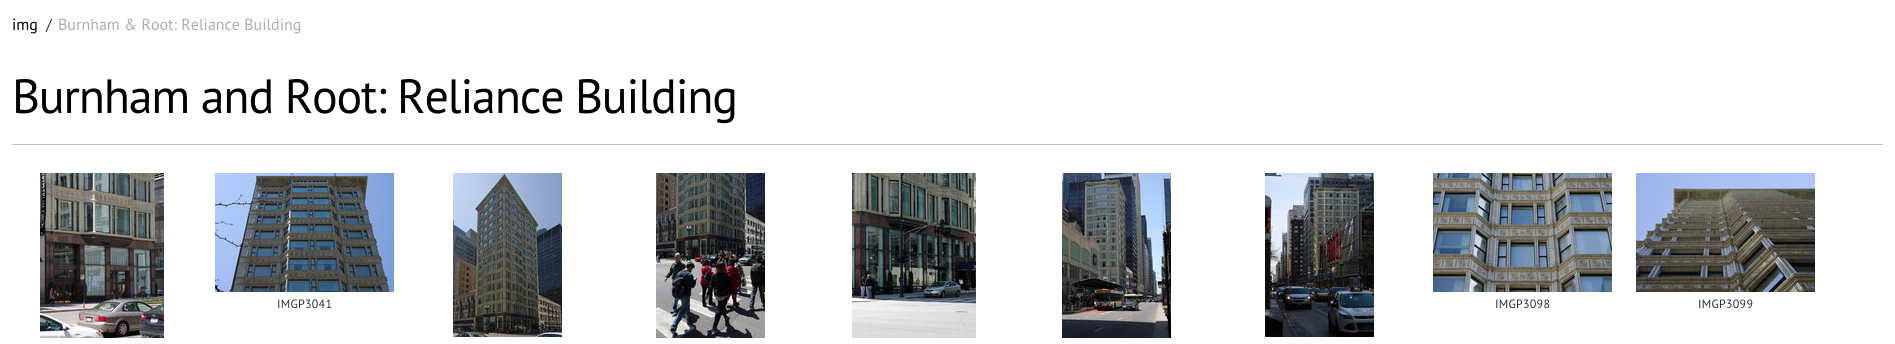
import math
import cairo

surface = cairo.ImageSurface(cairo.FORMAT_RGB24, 1895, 344)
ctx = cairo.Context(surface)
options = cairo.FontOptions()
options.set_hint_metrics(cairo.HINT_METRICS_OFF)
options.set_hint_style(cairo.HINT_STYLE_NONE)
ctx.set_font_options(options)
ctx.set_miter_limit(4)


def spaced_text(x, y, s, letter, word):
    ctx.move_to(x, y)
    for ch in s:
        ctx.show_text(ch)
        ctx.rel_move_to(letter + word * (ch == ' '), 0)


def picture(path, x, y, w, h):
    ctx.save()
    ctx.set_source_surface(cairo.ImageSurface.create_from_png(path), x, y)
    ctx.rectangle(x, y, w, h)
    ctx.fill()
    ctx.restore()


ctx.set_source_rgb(1, 1, 1)
ctx.paint()
ctx.select_font_face("PT Sans")
ctx.set_font_size(16)
ctx.set_source_rgb(0, 0, 0)
ctx.move_to(12, 30)
ctx.show_text("img")
ctx.set_source_rgb(0.18, 0.18, 0.18)
ctx.move_to(46, 30)
ctx.show_text("/")
ctx.set_source_rgb(0.678, 0.678, 0.678)
ctx.move_to(58, 30)
ctx.show_text("Burnham & Root: Reliance Building")
ctx.set_source_rgb(0.761, 0.761, 0.761)
ctx.rectangle(12, 144, 1871, 1)
ctx.fill()
ctx.set_font_size(48)
ctx.set_source_rgb(0, 0, 0)
spaced_text(12, 113, "Burnham and Root: Reliance Building", -1.2, 0)
picture("img1.png", 40, 173, 124, 165)
picture("img2.png", 215, 173, 179, 119)
ctx.set_font_size(12)
ctx.set_source_rgb(0.18, 0.18, 0.18)
spaced_text(277, 308, "IMGP3041", 0.25, 0)
picture("img3.png", 453, 173, 109, 164)
picture("img4.png", 656, 173, 109, 165)
picture("img5.png", 852, 173, 124, 165)
picture("img6.png", 1062, 173, 109, 165)
picture("img7.png", 1265, 173, 109, 164)
picture("img8.png", 1433, 173, 179, 119)
spaced_text(1495, 308, "IMGP3098", 0.25, 0)
picture("img9.png", 1636, 173, 179, 119)
spaced_text(1698, 308, "IMGP3099", 0.25, 0)
surface.write_to_png("page.png")
